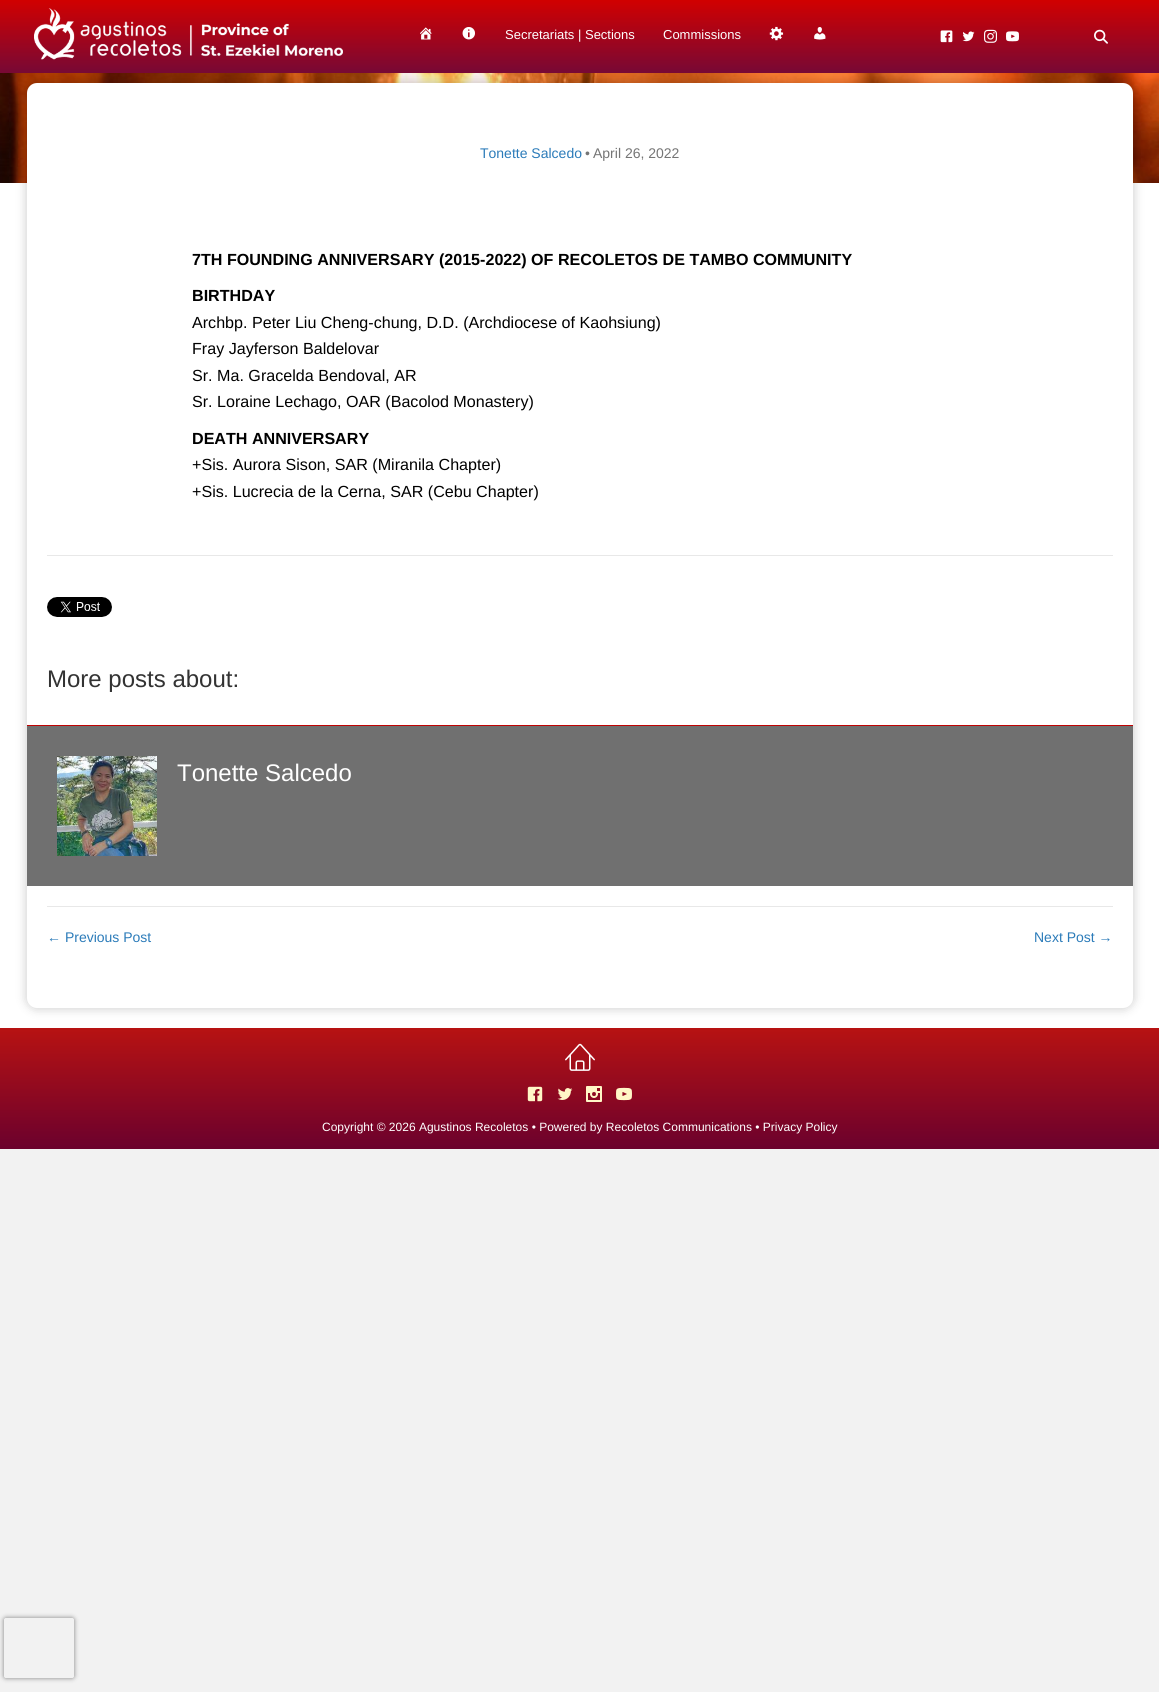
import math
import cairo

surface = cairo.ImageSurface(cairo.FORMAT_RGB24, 1159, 1692)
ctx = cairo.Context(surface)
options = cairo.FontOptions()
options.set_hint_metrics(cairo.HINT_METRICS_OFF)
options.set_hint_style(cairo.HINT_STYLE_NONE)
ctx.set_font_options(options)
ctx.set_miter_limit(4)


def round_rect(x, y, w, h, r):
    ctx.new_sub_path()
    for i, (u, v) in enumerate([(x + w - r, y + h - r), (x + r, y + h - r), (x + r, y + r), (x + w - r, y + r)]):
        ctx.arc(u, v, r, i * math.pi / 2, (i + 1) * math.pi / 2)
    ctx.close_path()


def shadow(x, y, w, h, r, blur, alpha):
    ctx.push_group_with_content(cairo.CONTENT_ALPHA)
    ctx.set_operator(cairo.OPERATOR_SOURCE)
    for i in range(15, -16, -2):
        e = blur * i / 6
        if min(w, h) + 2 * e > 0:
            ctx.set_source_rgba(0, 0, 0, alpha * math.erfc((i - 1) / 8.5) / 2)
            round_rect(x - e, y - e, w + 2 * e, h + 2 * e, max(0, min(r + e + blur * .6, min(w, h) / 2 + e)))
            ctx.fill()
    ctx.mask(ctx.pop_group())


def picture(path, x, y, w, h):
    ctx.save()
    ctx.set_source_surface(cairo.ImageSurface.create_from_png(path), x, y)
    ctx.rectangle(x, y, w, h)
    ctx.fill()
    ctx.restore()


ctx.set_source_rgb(0.949, 0.949, 0.949)
ctx.paint()
gradient = cairo.LinearGradient(580, 0, 580, 73)
gradient.add_color_stop_rgba(0, 0.82, 0, 0, 1)
gradient.add_color_stop_rgba(1, 0.467, 0.035, 0.208, 1)
ctx.set_source(gradient)
ctx.rectangle(0, 0, 1159, 73)
ctx.fill()
picture("img1.png", 34, 8, 309, 52)
picture("img2.png", 420, 27, 12, 13)
picture("img3.png", 462, 27, 13, 13)
ctx.select_font_face("Liberation Sans")
ctx.set_font_size(13)
ctx.set_source_rgb(1, 1, 1)
ctx.move_to(505, 39)
ctx.show_text("Secretariats | Sections")
ctx.move_to(663, 39)
ctx.show_text("Commissions")
picture("img4.png", 769, 26, 15, 15)
picture("img5.png", 814, 27, 12, 13)
picture("img6.png", 940, 30, 13, 13)
picture("img7.png", 962, 31, 13, 11)
picture("img8.png", 984, 29, 13, 14)
picture("img9.png", 1006, 31, 13, 11)
picture("img10.png", 1094, 29, 14, 15)
ctx.rectangle(0, 183, 1159, 845)
ctx.fill()
picture("img11.png", 0, 73, 1159, 110)
ctx.set_source_rgb(0.008, 0, 0)
shadow(26, 82, 1108, 927, 11, 5, 0.19)
ctx.set_source_rgb(1, 1, 1)
round_rect(27, 83, 1106, 925, 10)
ctx.fill()
ctx.set_font_size(14)
ctx.set_source_rgb(0.169, 0.482, 0.725)
ctx.move_to(480, 158)
ctx.show_text("Tonette Salcedo")
ctx.set_source_rgb(0.459, 0.459, 0.459)
ctx.move_to(585, 158)
ctx.show_text("•")
ctx.move_to(593, 158)
ctx.show_text("April 26, 2022")
ctx.select_font_face("Liberation Sans", cairo.FONT_SLANT_NORMAL, cairo.FONT_WEIGHT_BOLD)
ctx.set_font_size(16.1)
ctx.set_source_rgb(0, 0, 0)
ctx.move_to(192, 265)
ctx.show_text("7TH FOUNDING ANNIVERSARY (2015-2022) OF RECOLETOS DE TAMBO COMMUNITY")
ctx.move_to(192, 301)
ctx.show_text("BIRTHDAY")
ctx.select_font_face("Liberation Sans")
ctx.move_to(192, 328)
ctx.show_text("Archbp. Peter Liu Cheng-chung, D.D. (Archdiocese of Kaohsiung)")
ctx.move_to(192, 354)
ctx.show_text("Fray Jayferson Baldelovar")
ctx.move_to(192, 381)
ctx.show_text("Sr. Ma. Gracelda Bendoval, AR")
ctx.move_to(192, 407)
ctx.show_text("Sr. Loraine Lechago, OAR (Bacolod Monastery)")
ctx.select_font_face("Liberation Sans", cairo.FONT_SLANT_NORMAL, cairo.FONT_WEIGHT_BOLD)
ctx.move_to(192, 444)
ctx.show_text("DEATH ANNIVERSARY")
ctx.select_font_face("Liberation Sans")
ctx.move_to(192, 470)
ctx.show_text("+Sis. Aurora Sison, SAR (Miranila Chapter)")
ctx.move_to(192, 497)
ctx.show_text("+Sis. Lucrecia de la Cerna, SAR (Cebu Chapter)")
ctx.set_source_rgb(0.91, 0.91, 0.91)
ctx.rectangle(47, 555, 1066, 1)
ctx.fill()
picture("img12.png", 47, 597, 65, 20)
ctx.set_font_size(24)
ctx.set_source_rgb(0.2, 0.2, 0.2)
ctx.move_to(47, 687)
ctx.show_text("More posts about:")
ctx.set_source_rgb(0.749, 0.012, 0.012)
ctx.rectangle(27, 725, 1106, 1)
ctx.fill()
ctx.set_source_rgb(0.439, 0.439, 0.439)
ctx.rectangle(27, 726, 1106, 160)
ctx.fill()
picture("img13.png", 57, 756, 100, 100)
ctx.set_source_rgb(1, 1, 1)
ctx.move_to(177, 781)
ctx.show_text("Tonette Salcedo")
ctx.set_source_rgb(0.91, 0.91, 0.91)
ctx.rectangle(47, 906, 1066, 1)
ctx.fill()
ctx.set_font_size(14)
ctx.set_source_rgb(0.169, 0.482, 0.725)
ctx.move_to(47, 942)
ctx.show_text("← Previous Post")
ctx.move_to(1034, 942)
ctx.show_text("Next Post →")
gradient = cairo.LinearGradient(580, 1028, 580, 1149)
gradient.add_color_stop_rgba(0, 0.718, 0.071, 0.071, 1)
gradient.add_color_stop_rgba(1, 0.42, 0.004, 0.176, 1)
ctx.set_source(gradient)
ctx.rectangle(0, 1028, 1159, 121)
ctx.fill()
picture("img14.png", 565, 1043, 30, 28)
picture("img15.png", 527, 1086, 16, 16)
picture("img16.png", 557, 1088, 16, 12)
picture("img17.png", 586, 1086, 16, 16)
picture("img18.png", 616, 1087, 16, 14)
ctx.set_font_size(12)
ctx.set_source_rgb(1, 1, 1)
ctx.move_to(322, 1131)
ctx.show_text("Copyright © 2026 Agustinos Recoletos • Powered by Recoletos Communications • Privacy Policy")
ctx.save()
ctx.set_fill_rule(cairo.FILL_RULE_EVEN_ODD)
ctx.new_path()
ctx.move_to(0, 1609)
ctx.line_to(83, 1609)
ctx.line_to(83, 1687)
ctx.line_to(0, 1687)
ctx.close_path()
ctx.move_to(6, 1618)
ctx.line_to(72, 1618)
ctx.curve_to(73, 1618, 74, 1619, 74, 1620)
ctx.line_to(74, 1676)
ctx.curve_to(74, 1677, 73, 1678, 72, 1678)
ctx.line_to(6, 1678)
ctx.curve_to(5, 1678, 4, 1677, 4, 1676)
ctx.line_to(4, 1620)
ctx.curve_to(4, 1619, 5, 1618, 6, 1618)
ctx.close_path()
ctx.clip()
ctx.set_source_rgb(0.502, 0.502, 0.502)
shadow(4, 1618, 70, 60, 2, 2.5, 1)
ctx.restore()
surface.write_to_png("page.png")
